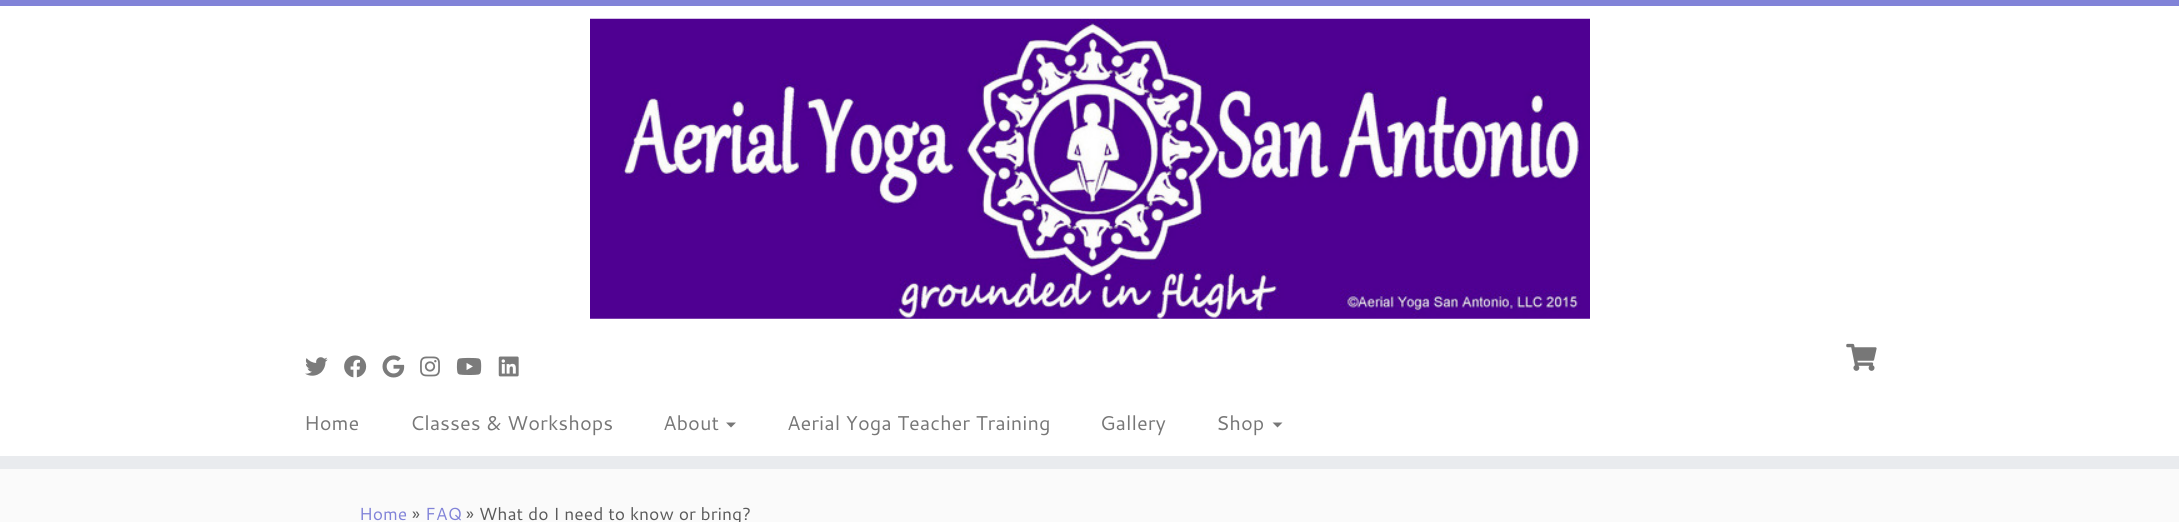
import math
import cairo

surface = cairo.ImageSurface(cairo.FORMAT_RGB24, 2179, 522)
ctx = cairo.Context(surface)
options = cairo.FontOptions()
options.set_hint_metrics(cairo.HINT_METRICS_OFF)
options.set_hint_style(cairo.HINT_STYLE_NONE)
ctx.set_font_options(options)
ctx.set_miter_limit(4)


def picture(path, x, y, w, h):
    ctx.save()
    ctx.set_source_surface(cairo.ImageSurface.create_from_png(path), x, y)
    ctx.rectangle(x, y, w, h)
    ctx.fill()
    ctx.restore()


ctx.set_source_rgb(0.98, 0.98, 0.98)
ctx.paint()
ctx.set_source_rgb(1, 1, 1)
ctx.rectangle(0, 6, 2179, 450)
ctx.fill()
ctx.set_source_rgb(0.506, 0.514, 0.847)
ctx.rectangle(0, 0, 2179, 6)
ctx.fill()
ctx.set_source_rgb(0.914, 0.918, 0.933)
ctx.rectangle(0, 456, 2179, 13)
ctx.fill()
picture("img1.png", 590, 18, 1000, 301)
picture("img2.png", 305, 357, 23, 19)
picture("img3.png", 344, 355, 23, 23)
picture("img4.png", 382, 355, 23, 23)
picture("img5.png", 420, 356, 20, 21)
picture("img6.png", 456, 357, 26, 18)
picture("img7.png", 498, 356, 21, 21)
picture("img8.png", 1846, 343, 31, 28)
ctx.select_font_face("Cantarell")
ctx.set_font_size(20)
ctx.set_source_rgb(0.467, 0.467, 0.467)
ctx.move_to(304, 430)
ctx.show_text("Home")
ctx.move_to(410, 430)
ctx.show_text("Classes & Workshops")
ctx.move_to(663, 430)
ctx.show_text("About")
ctx.new_path()
ctx.move_to(726, 422.5)
ctx.line_to(736, 422.5)
ctx.line_to(731, 427.5)
ctx.close_path()
ctx.fill()
ctx.move_to(787, 430)
ctx.show_text("Aerial Yoga Teacher Training")
ctx.move_to(1100, 430)
ctx.show_text("Gallery")
ctx.move_to(1216, 430)
ctx.show_text("Shop")
ctx.new_path()
ctx.move_to(1272.5, 422.5)
ctx.line_to(1282.5, 422.5)
ctx.line_to(1277.5, 427.5)
ctx.close_path()
ctx.fill()
ctx.set_font_size(17.5)
ctx.set_source_rgb(0.506, 0.514, 0.847)
ctx.move_to(359, 520)
ctx.show_text("Home")
ctx.set_source_rgb(0.353, 0.353, 0.353)
ctx.move_to(412, 520)
ctx.show_text("»")
ctx.set_source_rgb(0.506, 0.514, 0.847)
ctx.move_to(425, 520)
ctx.show_text("FAQ")
ctx.set_source_rgb(0.353, 0.353, 0.353)
ctx.move_to(466, 520)
ctx.show_text("» What do I need to know or bring?")
surface.write_to_png("page.png")
